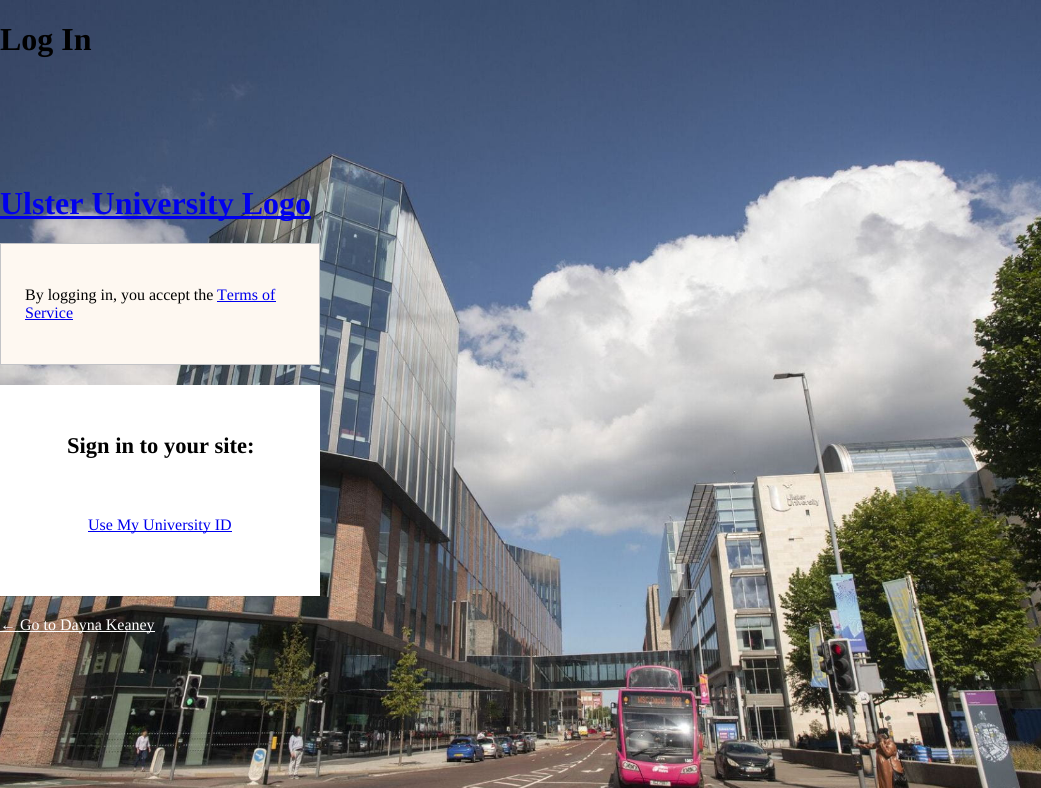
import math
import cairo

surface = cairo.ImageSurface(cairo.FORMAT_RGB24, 1041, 788)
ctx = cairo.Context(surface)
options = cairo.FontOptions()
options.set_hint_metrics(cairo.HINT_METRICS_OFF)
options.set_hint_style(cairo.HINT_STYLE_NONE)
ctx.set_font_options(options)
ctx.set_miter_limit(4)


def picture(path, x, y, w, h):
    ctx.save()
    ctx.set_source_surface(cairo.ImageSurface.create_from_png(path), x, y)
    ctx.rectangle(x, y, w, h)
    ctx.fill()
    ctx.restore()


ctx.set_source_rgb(1, 1, 1)
ctx.paint()
picture("img1.png", 0, 0, 1041, 788)
ctx.select_font_face("Liberation Serif", cairo.FONT_SLANT_NORMAL, cairo.FONT_WEIGHT_BOLD)
ctx.set_font_size(32)
ctx.set_source_rgb(0, 0, 0)
ctx.move_to(0, 50)
ctx.show_text("Log In")
ctx.set_source_rgb(0, 0, 0.933)
ctx.rectangle(0, 216, 311, 3)
ctx.fill()
ctx.move_to(0, 214)
ctx.show_text("Ulster University Logo")
ctx.set_source_rgb(0.996, 0.969, 0.945)
ctx.rectangle(0.5, 243.5, 319, 121)
ctx.fill_preserve()
ctx.set_source_rgb(0.765, 0.769, 0.78)
ctx.set_line_width(1)
ctx.stroke()
ctx.select_font_face("Liberation Serif")
ctx.set_font_size(16)
ctx.set_source_rgb(0, 0, 0)
ctx.move_to(25, 300)
ctx.show_text("By logging in, you accept the")
ctx.set_source_rgb(0, 0, 0.933)
ctx.move_to(217, 300)
ctx.show_text("Terms of")
ctx.rectangle(217, 301, 59, 1)
ctx.fill()
ctx.move_to(25, 318)
ctx.show_text("Service")
ctx.rectangle(25, 319, 48, 1)
ctx.fill()
ctx.set_source_rgba(0, 0, 0, 0.13)
ctx.rectangle(0, 596, 320, 1)
ctx.fill()
ctx.set_source_rgb(1, 1, 1)
ctx.rectangle(0, 385, 320, 211)
ctx.fill()
ctx.select_font_face("Liberation Serif", cairo.FONT_SLANT_NORMAL, cairo.FONT_WEIGHT_BOLD)
ctx.set_font_size(22.5)
ctx.set_source_rgb(0, 0, 0)
ctx.move_to(67, 453)
ctx.show_text("Sign in to your site:")
ctx.set_source_rgb(0, 0, 0.933)
ctx.rectangle(88, 531, 144, 1)
ctx.fill()
ctx.select_font_face("Liberation Serif")
ctx.set_font_size(16)
ctx.move_to(88, 530)
ctx.show_text("Use My University ID")
ctx.set_source_rgb(1, 1, 1)
ctx.rectangle(0, 631, 155, 1)
ctx.fill()
ctx.move_to(0, 630)
ctx.show_text("← Go to Dayna Keaney")
surface.write_to_png("page.png")
